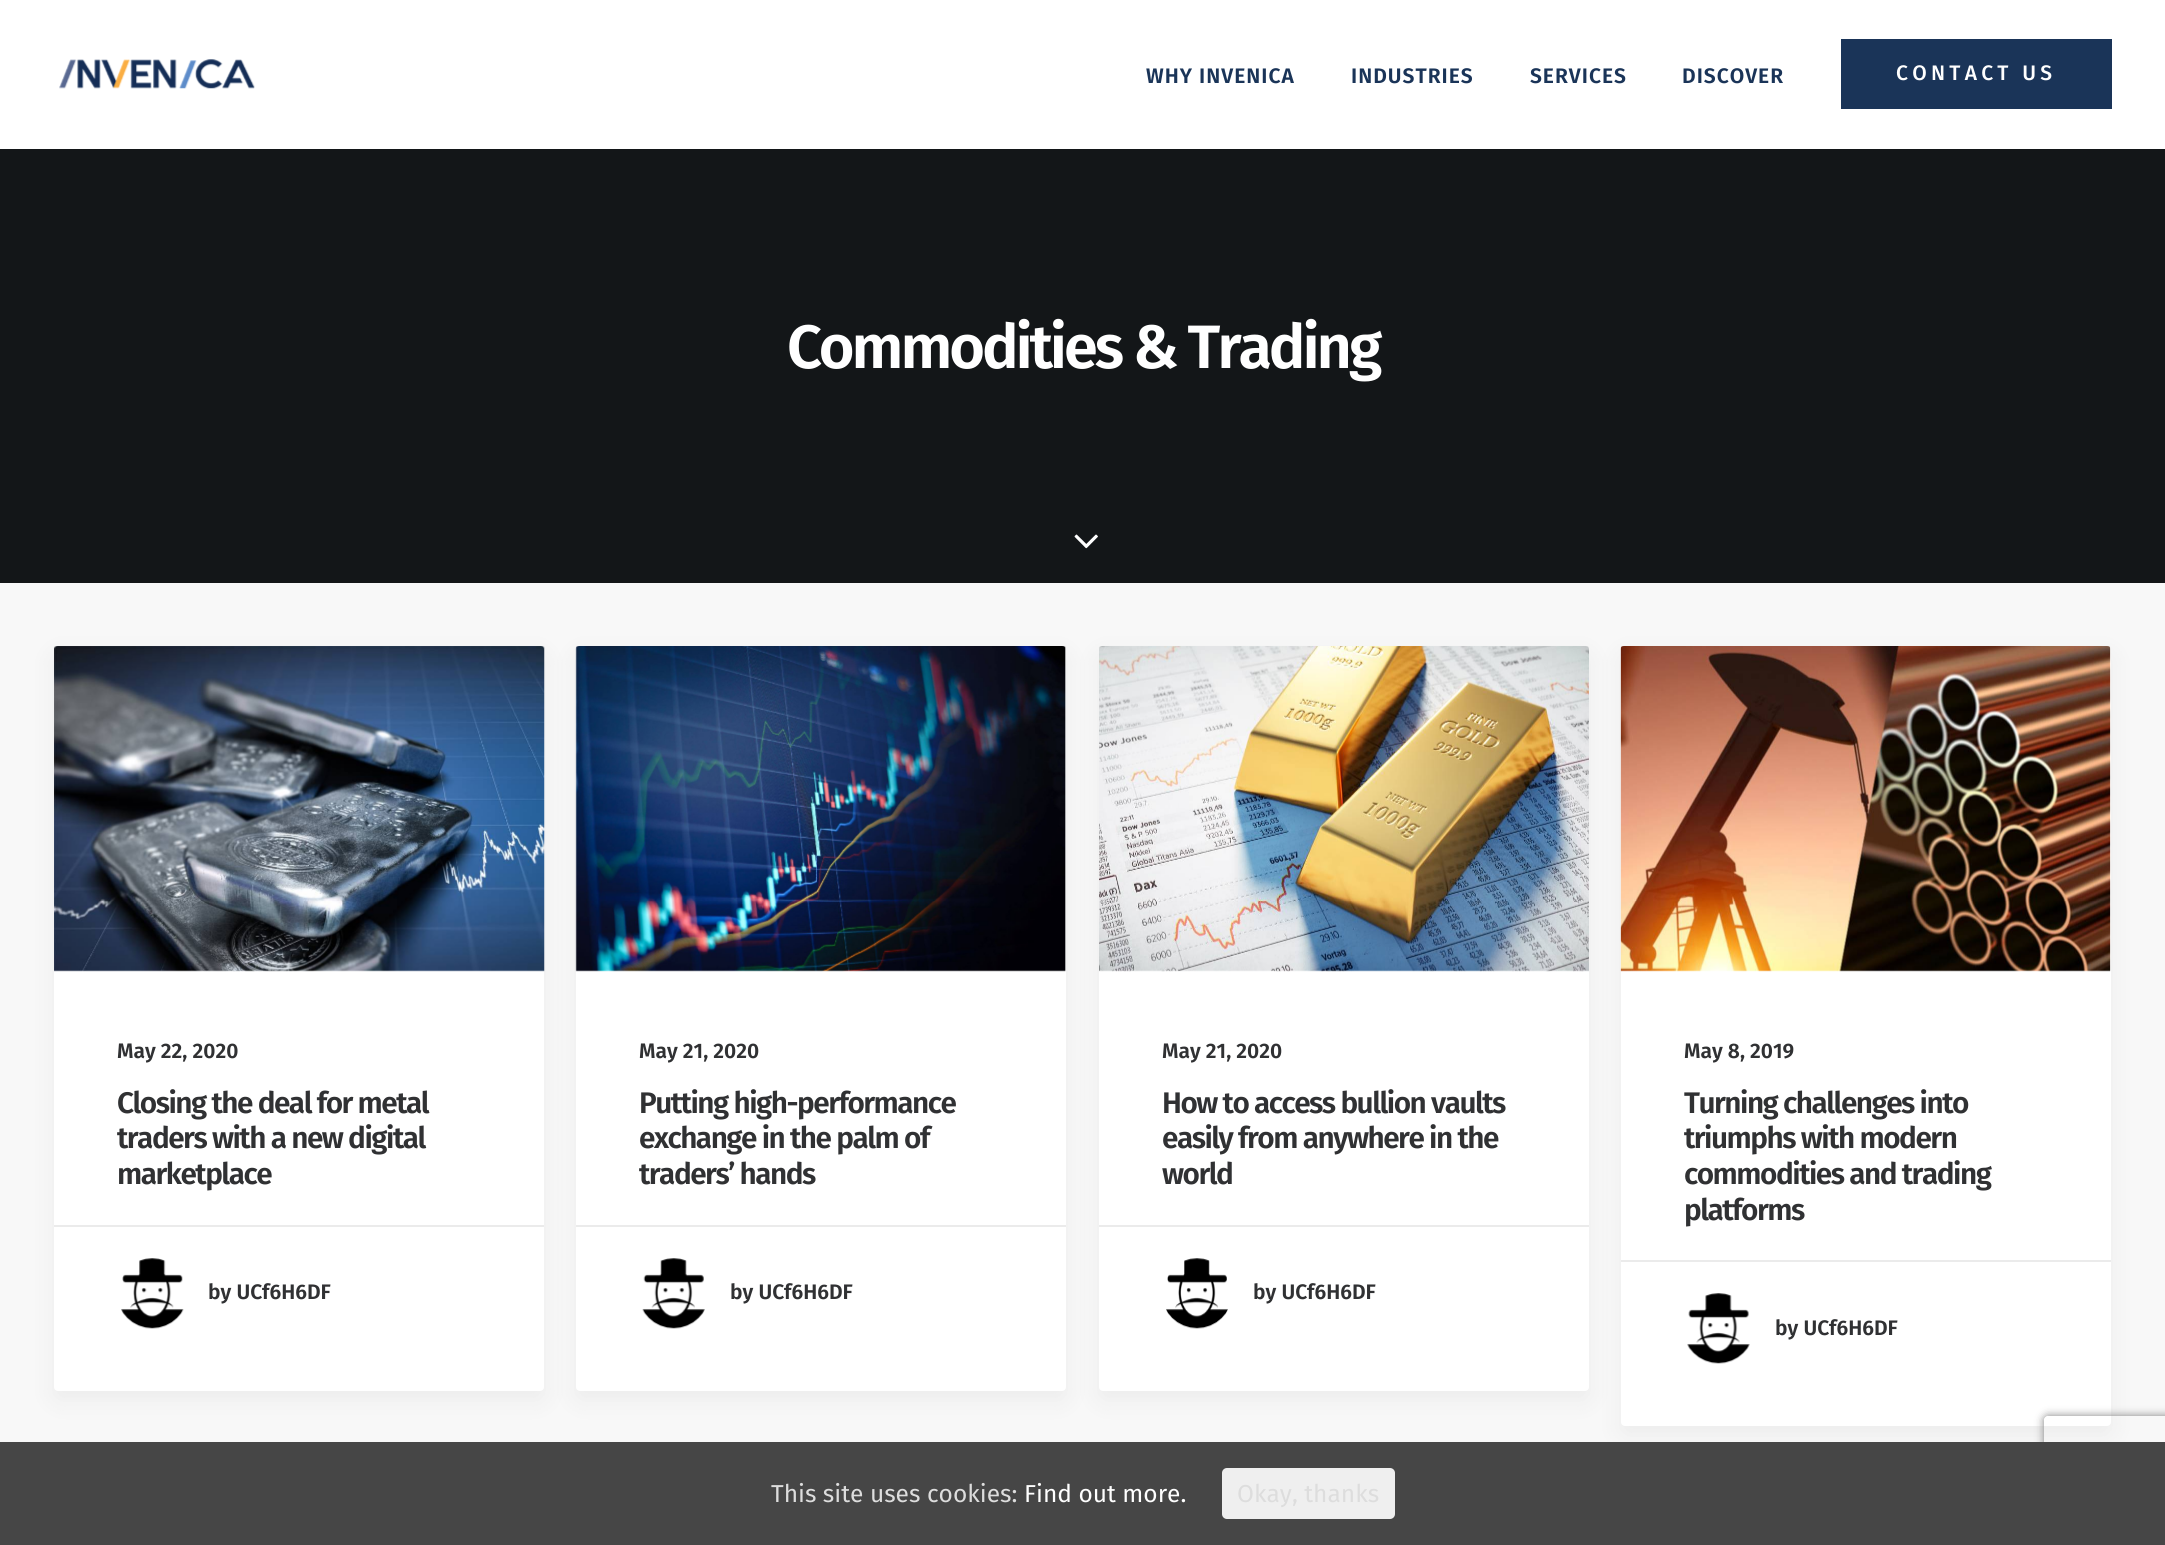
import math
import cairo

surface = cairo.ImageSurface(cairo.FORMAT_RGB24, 2165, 1545)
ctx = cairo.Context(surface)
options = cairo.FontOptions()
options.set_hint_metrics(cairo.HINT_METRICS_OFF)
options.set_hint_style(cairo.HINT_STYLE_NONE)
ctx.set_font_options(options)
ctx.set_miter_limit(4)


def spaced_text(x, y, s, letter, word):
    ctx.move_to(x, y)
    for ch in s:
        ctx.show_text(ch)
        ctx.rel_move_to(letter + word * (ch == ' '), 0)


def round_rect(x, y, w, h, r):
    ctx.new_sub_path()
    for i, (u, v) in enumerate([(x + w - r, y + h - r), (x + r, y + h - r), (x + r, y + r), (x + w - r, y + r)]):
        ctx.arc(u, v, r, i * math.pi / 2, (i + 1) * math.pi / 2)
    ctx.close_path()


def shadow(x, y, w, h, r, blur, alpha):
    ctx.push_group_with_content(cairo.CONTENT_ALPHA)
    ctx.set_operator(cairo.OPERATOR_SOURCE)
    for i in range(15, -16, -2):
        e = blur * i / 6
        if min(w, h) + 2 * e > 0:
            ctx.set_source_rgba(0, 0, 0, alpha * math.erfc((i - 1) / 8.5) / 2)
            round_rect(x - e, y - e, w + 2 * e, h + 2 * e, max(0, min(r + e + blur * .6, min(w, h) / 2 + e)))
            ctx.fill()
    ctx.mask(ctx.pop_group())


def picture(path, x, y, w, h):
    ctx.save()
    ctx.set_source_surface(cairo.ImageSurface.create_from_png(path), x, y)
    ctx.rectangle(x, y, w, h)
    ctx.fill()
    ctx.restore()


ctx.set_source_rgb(0.078, 0.086, 0.094)
ctx.paint()
ctx.set_source_rgb(1, 1, 1)
ctx.rectangle(0, 0, 2165, 149)
ctx.fill()
picture("img1.png", 59, 59, 196, 30)
ctx.select_font_face("Fira Sans SemiBold")
ctx.set_font_size(21)
ctx.set_source_rgb(0.102, 0.204, 0.345)
spaced_text(1146, 83, "WHY INVENICA", 1, 0)
spaced_text(1351, 83, "INDUSTRIES", 1, 0)
spaced_text(1530, 83, "SERVICES", 1, 0)
spaced_text(1682, 83, "DISCOVER", 1, 0)
ctx.rectangle(1841, 39, 271, 70)
ctx.fill()
ctx.select_font_face("Fira Sans Medium")
ctx.set_source_rgb(1, 1, 1)
spaced_text(1896, 80, "CONTACT US", 4.25, 0)
ctx.select_font_face("Fira Sans SemiBold")
ctx.set_font_size(61.25)
spaced_text(787, 368, "Commodities & Trading", -3.1, 0)
picture("img2.png", 1074, 534, 24, 15)
ctx.set_source_rgb(0.969, 0.969, 0.969)
ctx.rectangle(0, 583, 2165, 859)
ctx.fill()
ctx.set_source_rgb(0, 0, 0)
shadow(54, 655, 490, 745, 4, 13, 0.05)
ctx.set_source_rgb(1, 1, 1)
round_rect(54, 646, 490, 745, 4)
ctx.fill()
picture("img3.png", 54, 646, 491, 326)
ctx.set_font_size(21)
ctx.set_source_rgb(0.188, 0.192, 0.2)
ctx.move_to(117, 1058)
ctx.show_text("May 22, 2020")
ctx.set_font_size(29.75)
spaced_text(117, 1113, "Closing the deal for metal", -1.5, 0)
spaced_text(117, 1148, "traders with a new digital", -1.5, 0)
spaced_text(117, 1184, "marketplace", -1.5, 0)
ctx.set_source_rgb(0.918, 0.918, 0.918)
ctx.rectangle(54, 1225, 490, 2)
ctx.fill()
picture("img4.png", 121, 1258, 63, 71)
ctx.set_font_size(21)
ctx.set_source_rgb(0.188, 0.192, 0.2)
ctx.move_to(208, 1299)
ctx.show_text("by UCf6H6DF")
ctx.set_source_rgb(0, 0, 0)
shadow(576, 655, 490, 745, 4, 13, 0.05)
ctx.set_source_rgb(1, 1, 1)
round_rect(576, 646, 490, 745, 4)
ctx.fill()
picture("img5.png", 575, 646, 491, 326)
ctx.set_source_rgb(0.188, 0.192, 0.2)
ctx.move_to(639, 1058)
ctx.show_text("May 21, 2020")
ctx.set_font_size(29.75)
spaced_text(639, 1113, "Putting high-performance", -1.5, 0)
spaced_text(639, 1148, "exchange in the palm of", -1.5, 0)
spaced_text(639, 1184, "traders’ hands", -1.5, 0)
ctx.set_source_rgb(0.918, 0.918, 0.918)
ctx.rectangle(576, 1225, 490, 2)
ctx.fill()
picture("img6.png", 642, 1258, 63, 71)
ctx.set_font_size(21)
ctx.set_source_rgb(0.188, 0.192, 0.2)
ctx.move_to(730, 1299)
ctx.show_text("by UCf6H6DF")
ctx.set_source_rgb(0, 0, 0)
shadow(1099, 655, 490, 745, 4, 13, 0.05)
ctx.set_source_rgb(1, 1, 1)
round_rect(1099, 646, 490, 745, 4)
ctx.fill()
picture("img7.png", 1099, 646, 490, 326)
ctx.set_source_rgb(0.188, 0.192, 0.2)
ctx.move_to(1162, 1058)
ctx.show_text("May 21, 2020")
ctx.set_font_size(29.75)
spaced_text(1162, 1113, "How to access bullion vaults", -1.5, 0)
spaced_text(1162, 1148, "easily from anywhere in the", -1.5, 0)
spaced_text(1162, 1184, "world", -1.5, 0)
ctx.set_source_rgb(0.918, 0.918, 0.918)
ctx.rectangle(1099, 1225, 490, 2)
ctx.fill()
picture("img8.png", 1166, 1258, 62, 71)
ctx.set_font_size(21)
ctx.set_source_rgb(0.188, 0.192, 0.2)
ctx.move_to(1253, 1299)
ctx.show_text("by UCf6H6DF")
ctx.set_source_rgb(0, 0, 0)
shadow(1621, 655, 490, 780, 4, 13, 0.05)
ctx.set_source_rgb(1, 1, 1)
round_rect(1621, 646, 490, 780, 4)
ctx.fill()
picture("img9.png", 1620, 646, 491, 326)
ctx.set_source_rgb(0.188, 0.192, 0.2)
ctx.move_to(1684, 1058)
ctx.show_text("May 8, 2019")
ctx.set_font_size(29.75)
spaced_text(1684, 1113, "Turning challenges into", -1.5, 0)
spaced_text(1684, 1148, "triumphs with modern", -1.5, 0)
spaced_text(1684, 1184, "commodities and trading", -1.5, 0)
spaced_text(1684, 1220, "platforms", -1.5, 0)
ctx.set_source_rgb(0.918, 0.918, 0.918)
ctx.rectangle(1621, 1260, 490, 2)
ctx.fill()
picture("img10.png", 1687, 1293, 63, 71)
ctx.set_font_size(21)
ctx.set_source_rgb(0.188, 0.192, 0.2)
ctx.move_to(1775, 1335)
ctx.show_text("by UCf6H6DF")
ctx.save()
ctx.set_fill_rule(cairo.FILL_RULE_EVEN_ODD)
ctx.new_path()
ctx.move_to(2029, 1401)
ctx.line_to(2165, 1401)
ctx.line_to(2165, 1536)
ctx.line_to(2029, 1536)
ctx.close_path()
ctx.move_to(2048, 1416)
ctx.line_to(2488, 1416)
ctx.curve_to(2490, 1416, 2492, 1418, 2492, 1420)
ctx.line_to(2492, 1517)
ctx.curve_to(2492, 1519, 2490, 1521, 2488, 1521)
ctx.line_to(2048, 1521)
ctx.curve_to(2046, 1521, 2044, 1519, 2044, 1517)
ctx.line_to(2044, 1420)
ctx.curve_to(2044, 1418, 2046, 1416, 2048, 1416)
ctx.close_path()
ctx.clip()
ctx.set_source_rgb(0.502, 0.502, 0.502)
shadow(2044, 1416, 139, 105, 4, 4.5, 1)
ctx.restore()
ctx.set_source_rgb(0.275, 0.275, 0.275)
ctx.rectangle(0, 1442, 2165, 103)
ctx.fill()
ctx.select_font_face("Fira Sans")
ctx.set_font_size(24.5)
ctx.set_source_rgb(0.867, 0.867, 0.867)
ctx.move_to(771, 1502)
ctx.show_text("This site uses cookies:")
ctx.set_source_rgb(1, 1, 1)
ctx.move_to(1024, 1502)
ctx.show_text("Find out more.")
ctx.set_source_rgb(0.937, 0.937, 0.937)
round_rect(1222, 1468, 173, 51, 5)
ctx.fill()
ctx.set_source_rgb(0.867, 0.867, 0.867)
ctx.move_to(1237, 1502)
ctx.show_text("Okay, thanks")
surface.write_to_png("page.png")
